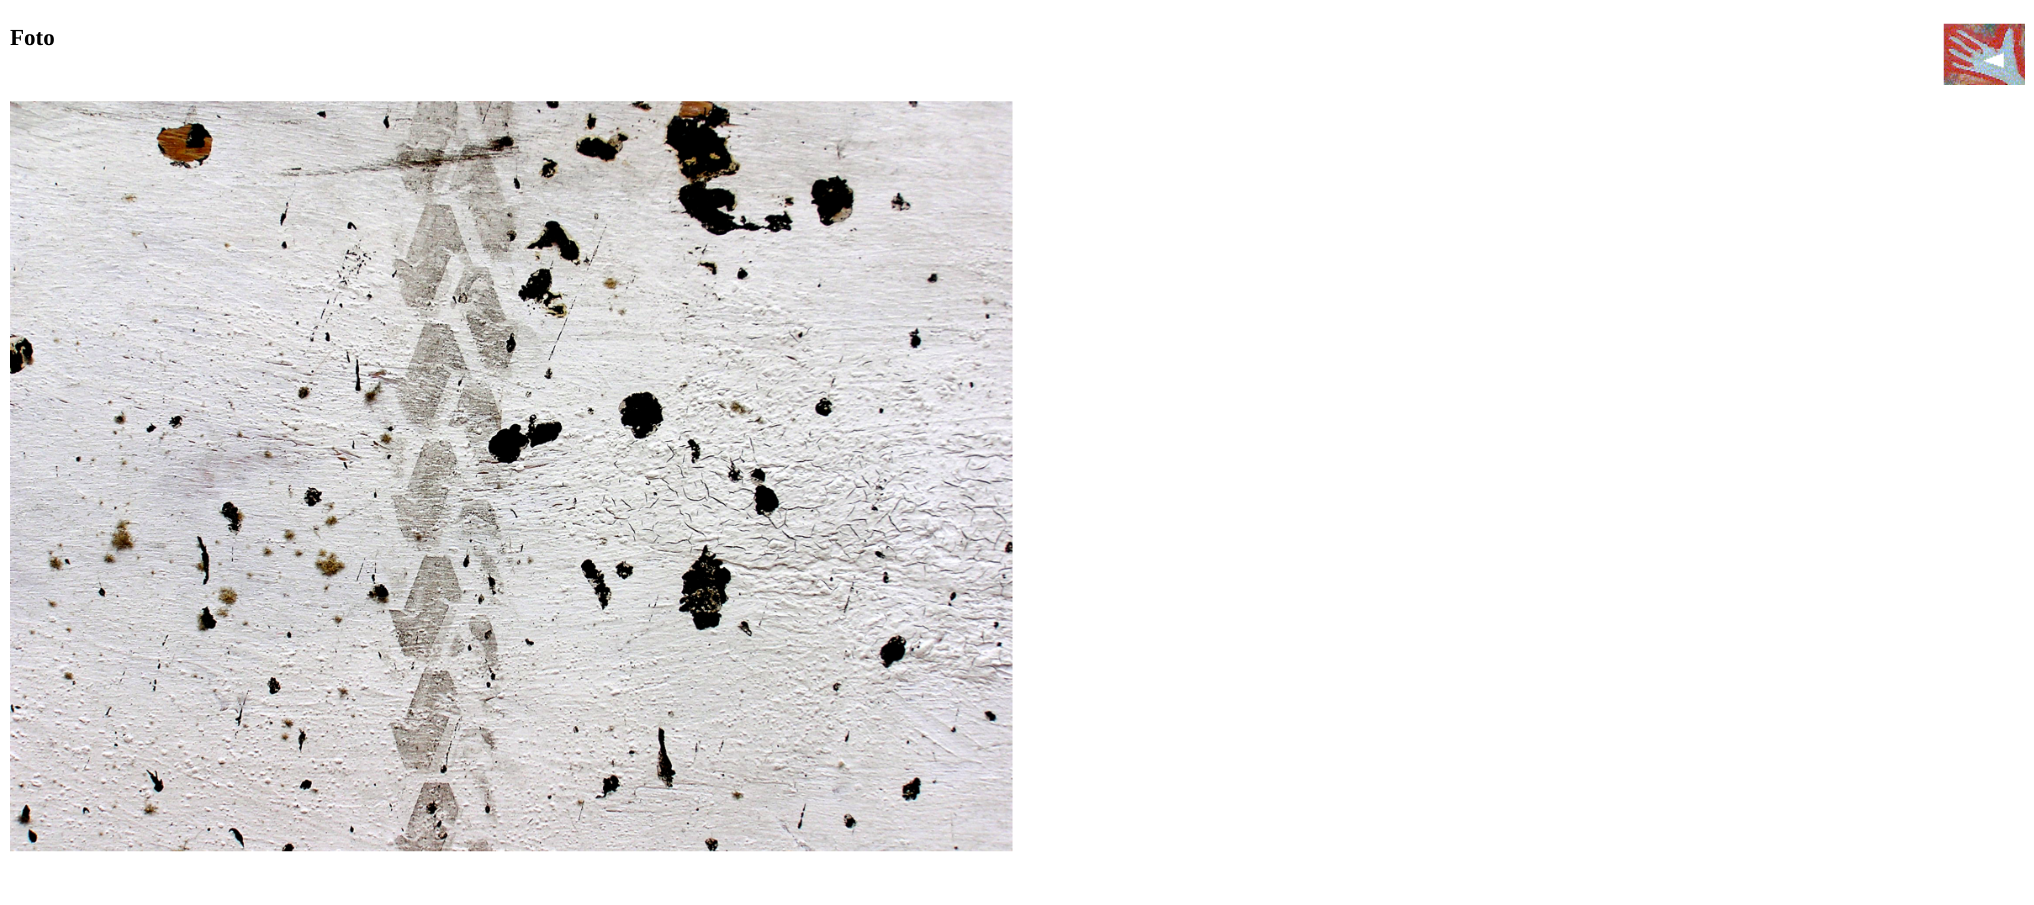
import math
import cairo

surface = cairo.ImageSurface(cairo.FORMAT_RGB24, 2034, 905)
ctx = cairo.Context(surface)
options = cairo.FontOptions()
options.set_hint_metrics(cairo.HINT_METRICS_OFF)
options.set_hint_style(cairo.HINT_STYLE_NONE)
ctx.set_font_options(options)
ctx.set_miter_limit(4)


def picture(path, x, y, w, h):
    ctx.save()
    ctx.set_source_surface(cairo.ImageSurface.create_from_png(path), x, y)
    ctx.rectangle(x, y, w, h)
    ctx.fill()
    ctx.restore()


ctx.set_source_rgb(1, 1, 1)
ctx.paint()
ctx.select_font_face("Liberation Serif", cairo.FONT_SLANT_NORMAL, cairo.FONT_WEIGHT_BOLD)
ctx.set_font_size(23)
ctx.set_source_rgb(0, 0, 0)
ctx.move_to(10, 45)
ctx.show_text("Foto")
picture("img1.png", 1943, 23, 82, 62)
picture("img2.png", 10, 101, 1003, 751)
surface.write_to_png("page.png")
